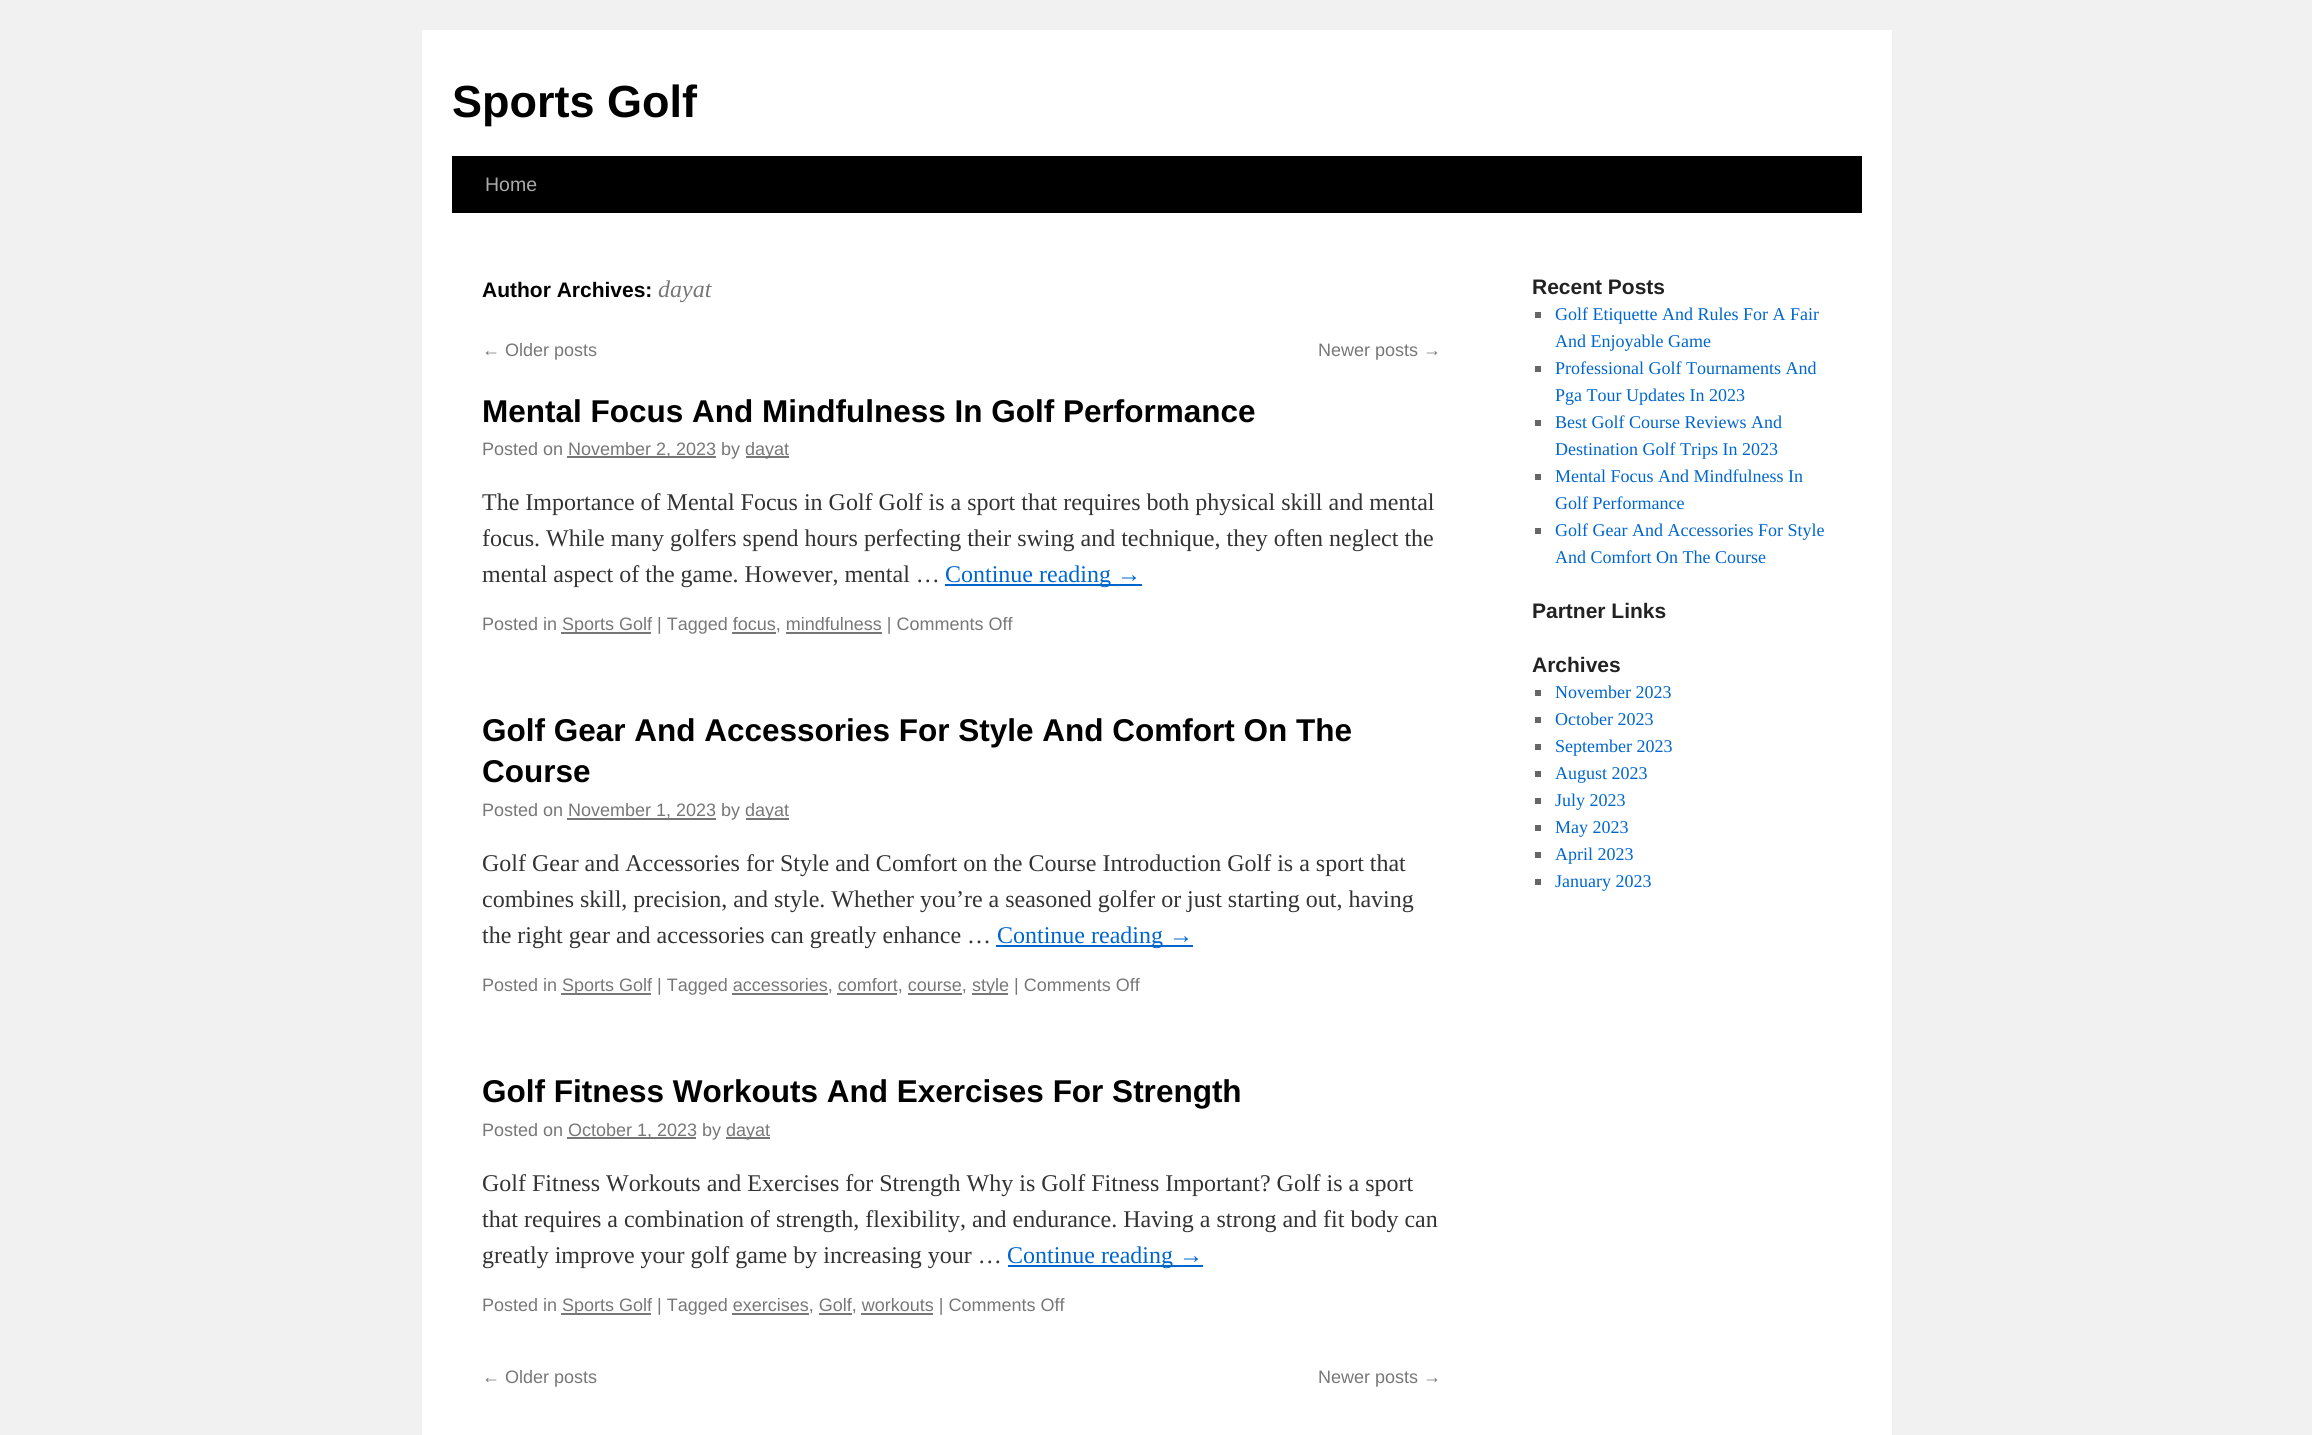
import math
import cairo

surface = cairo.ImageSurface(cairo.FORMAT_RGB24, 2312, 1435)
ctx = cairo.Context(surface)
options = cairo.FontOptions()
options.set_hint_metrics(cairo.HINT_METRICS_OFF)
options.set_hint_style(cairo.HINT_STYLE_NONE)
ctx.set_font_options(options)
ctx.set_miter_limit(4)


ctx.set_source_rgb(0.945, 0.945, 0.945)
ctx.paint()
ctx.set_source_rgb(1, 1, 1)
ctx.rectangle(422, 30, 1470, 1405)
ctx.fill()
ctx.select_font_face("Liberation Sans", cairo.FONT_SLANT_NORMAL, cairo.FONT_WEIGHT_BOLD)
ctx.set_font_size(45)
ctx.set_source_rgb(0, 0, 0)
ctx.move_to(452, 117)
ctx.show_text("Sports Golf")
ctx.rectangle(452, 156, 1410, 57)
ctx.fill()
ctx.select_font_face("Liberation Sans")
ctx.set_font_size(19.5)
ctx.set_source_rgb(0.667, 0.667, 0.667)
ctx.move_to(485, 191)
ctx.show_text("Home")
ctx.select_font_face("Liberation Sans", cairo.FONT_SLANT_NORMAL, cairo.FONT_WEIGHT_BOLD)
ctx.set_font_size(21)
ctx.set_source_rgb(0, 0, 0)
ctx.move_to(482, 297)
ctx.show_text("Author Archives:")
ctx.select_font_face("Liberation Serif", cairo.FONT_SLANT_ITALIC)
ctx.set_font_size(24)
ctx.set_source_rgb(0.467, 0.467, 0.467)
ctx.move_to(658, 297)
ctx.show_text("dayat")
ctx.select_font_face("Liberation Sans")
ctx.set_font_size(18)
ctx.move_to(482, 356)
ctx.show_text("← Older posts")
ctx.move_to(1318, 356)
ctx.show_text("Newer posts →")
ctx.select_font_face("Liberation Sans", cairo.FONT_SLANT_NORMAL, cairo.FONT_WEIGHT_BOLD)
ctx.set_font_size(31.5)
ctx.set_source_rgb(0, 0, 0)
ctx.move_to(482, 422)
ctx.show_text("Mental Focus And Mindfulness In Golf Performance")
ctx.select_font_face("Liberation Sans")
ctx.set_font_size(18)
ctx.set_source_rgb(0.467, 0.467, 0.467)
ctx.move_to(482, 455)
ctx.show_text("Posted on")
ctx.rectangle(567, 456, 149, 2)
ctx.fill()
ctx.move_to(568, 455)
ctx.show_text("November 2, 2023 by")
ctx.rectangle(746, 456, 43, 2)
ctx.fill()
ctx.move_to(745, 455)
ctx.show_text("dayat")
ctx.select_font_face("Liberation Serif")
ctx.set_font_size(24)
ctx.set_source_rgb(0.2, 0.2, 0.2)
ctx.move_to(482, 510)
ctx.show_text("The Importance of Mental Focus in Golf Golf is a sport that requires both physical skill and mental")
ctx.move_to(482, 546)
ctx.show_text("focus. While many golfers spend hours perfecting their swing and technique, they often neglect the")
ctx.move_to(482, 582)
ctx.show_text("mental aspect of the game. However, mental …")
ctx.set_source_rgb(0, 0.4, 0.8)
ctx.rectangle(945, 584, 197, 2)
ctx.fill()
ctx.move_to(945, 582)
ctx.show_text("Continue reading →")
ctx.select_font_face("Liberation Sans")
ctx.set_font_size(18)
ctx.set_source_rgb(0.467, 0.467, 0.467)
ctx.move_to(482, 630)
ctx.show_text("Posted in")
ctx.rectangle(561, 632, 90, 2)
ctx.fill()
ctx.move_to(562, 630)
ctx.show_text("Sports Golf | Tagged focus, mindfulness | Comments Off")
ctx.rectangle(732, 632, 44, 2)
ctx.fill()
ctx.rectangle(786, 632, 96, 2)
ctx.fill()
ctx.select_font_face("Liberation Sans", cairo.FONT_SLANT_NORMAL, cairo.FONT_WEIGHT_BOLD)
ctx.set_font_size(31.5)
ctx.set_source_rgb(0, 0, 0)
ctx.move_to(482, 741)
ctx.show_text("Golf Gear And Accessories For Style And Comfort On The")
ctx.move_to(482, 782)
ctx.show_text("Course")
ctx.select_font_face("Liberation Sans")
ctx.set_font_size(18)
ctx.set_source_rgb(0.467, 0.467, 0.467)
ctx.move_to(482, 816)
ctx.show_text("Posted on")
ctx.rectangle(567, 818, 149, 2)
ctx.fill()
ctx.move_to(568, 816)
ctx.show_text("November 1, 2023 by")
ctx.rectangle(746, 818, 43, 2)
ctx.fill()
ctx.move_to(745, 816)
ctx.show_text("dayat")
ctx.select_font_face("Liberation Serif")
ctx.set_font_size(24)
ctx.set_source_rgb(0.2, 0.2, 0.2)
ctx.move_to(482, 871)
ctx.show_text("Golf Gear and Accessories for Style and Comfort on the Course Introduction Golf is a sport that")
ctx.move_to(482, 907)
ctx.show_text("combines skill, precision, and style. Whether you’re a seasoned golfer or just starting out, having")
ctx.move_to(482, 943)
ctx.show_text("the right gear and accessories can greatly enhance …")
ctx.set_source_rgb(0, 0.4, 0.8)
ctx.rectangle(996, 945, 197, 2)
ctx.fill()
ctx.move_to(997, 943)
ctx.show_text("Continue reading →")
ctx.select_font_face("Liberation Sans")
ctx.set_font_size(18)
ctx.set_source_rgb(0.467, 0.467, 0.467)
ctx.move_to(482, 991)
ctx.show_text("Posted in")
ctx.rectangle(561, 993, 90, 2)
ctx.fill()
ctx.move_to(562, 991)
ctx.show_text("Sports Golf | Tagged accessories, comfort, course,")
ctx.rectangle(972, 993, 36, 2)
ctx.fill()
ctx.move_to(972, 991)
ctx.show_text("style | Comments Off")
ctx.rectangle(732, 993, 96, 2)
ctx.fill()
ctx.rectangle(837, 993, 60, 2)
ctx.fill()
ctx.rectangle(908, 993, 54, 2)
ctx.fill()
ctx.select_font_face("Liberation Sans", cairo.FONT_SLANT_NORMAL, cairo.FONT_WEIGHT_BOLD)
ctx.set_font_size(31.5)
ctx.set_source_rgb(0, 0, 0)
ctx.move_to(482, 1102)
ctx.show_text("Golf Fitness Workouts And Exercises For Strength")
ctx.select_font_face("Liberation Sans")
ctx.set_font_size(18)
ctx.set_source_rgb(0.467, 0.467, 0.467)
ctx.move_to(482, 1136)
ctx.show_text("Posted on")
ctx.rectangle(567, 1137, 129, 2)
ctx.fill()
ctx.move_to(568, 1136)
ctx.show_text("October 1, 2023 by")
ctx.rectangle(726, 1137, 44, 2)
ctx.fill()
ctx.move_to(726, 1136)
ctx.show_text("dayat")
ctx.select_font_face("Liberation Serif")
ctx.set_font_size(24)
ctx.set_source_rgb(0.2, 0.2, 0.2)
ctx.move_to(482, 1191)
ctx.show_text("Golf Fitness Workouts and Exercises for Strength Why is Golf Fitness Important? Golf is a sport")
ctx.move_to(482, 1227)
ctx.show_text("that requires a combination of strength, flexibility, and endurance. Having a strong and fit body can")
ctx.move_to(482, 1263)
ctx.show_text("greatly improve your golf game by increasing your …")
ctx.set_source_rgb(0, 0.4, 0.8)
ctx.rectangle(1008, 1265, 195, 2)
ctx.fill()
ctx.move_to(1007, 1263)
ctx.show_text("Continue reading →")
ctx.select_font_face("Liberation Sans")
ctx.set_font_size(18)
ctx.set_source_rgb(0.467, 0.467, 0.467)
ctx.move_to(482, 1311)
ctx.show_text("Posted in")
ctx.rectangle(561, 1313, 90, 2)
ctx.fill()
ctx.move_to(562, 1311)
ctx.show_text("Sports Golf | Tagged exercises, Golf, workouts | Comments Off")
ctx.rectangle(732, 1313, 77, 2)
ctx.fill()
ctx.rectangle(819, 1313, 33, 2)
ctx.fill()
ctx.rectangle(861, 1313, 72, 2)
ctx.fill()
ctx.move_to(482, 1383)
ctx.show_text("← Older posts")
ctx.move_to(1318, 1383)
ctx.show_text("Newer posts →")
ctx.select_font_face("Liberation Sans", cairo.FONT_SLANT_NORMAL, cairo.FONT_WEIGHT_BOLD)
ctx.set_font_size(21)
ctx.set_source_rgb(0.133, 0.133, 0.133)
ctx.move_to(1532, 294)
ctx.show_text("Recent Posts")
ctx.set_source_rgb(0.4, 0.4, 0.4)
ctx.rectangle(1535, 312, 6, 6)
ctx.fill()
ctx.select_font_face("Liberation Serif")
ctx.set_font_size(18)
ctx.set_source_rgb(0, 0.4, 0.8)
ctx.move_to(1555, 320)
ctx.show_text("Golf Etiquette And Rules For A Fair")
ctx.move_to(1555, 347)
ctx.show_text("And Enjoyable Game")
ctx.set_source_rgb(0.4, 0.4, 0.4)
ctx.rectangle(1535, 366, 6, 6)
ctx.fill()
ctx.set_source_rgb(0, 0.4, 0.8)
ctx.move_to(1555, 374)
ctx.show_text("Professional Golf Tournaments And")
ctx.move_to(1555, 401)
ctx.show_text("Pga Tour Updates In 2023")
ctx.set_source_rgb(0.4, 0.4, 0.4)
ctx.rectangle(1535, 420, 6, 6)
ctx.fill()
ctx.set_source_rgb(0, 0.4, 0.8)
ctx.move_to(1555, 428)
ctx.show_text("Best Golf Course Reviews And")
ctx.move_to(1555, 455)
ctx.show_text("Destination Golf Trips In 2023")
ctx.set_source_rgb(0.4, 0.4, 0.4)
ctx.rectangle(1535, 474, 6, 6)
ctx.fill()
ctx.set_source_rgb(0, 0.4, 0.8)
ctx.move_to(1555, 482)
ctx.show_text("Mental Focus And Mindfulness In")
ctx.move_to(1555, 509)
ctx.show_text("Golf Performance")
ctx.set_source_rgb(0.4, 0.4, 0.4)
ctx.rectangle(1535, 528, 6, 6)
ctx.fill()
ctx.set_source_rgb(0, 0.4, 0.8)
ctx.move_to(1555, 536)
ctx.show_text("Golf Gear And Accessories For Style")
ctx.move_to(1555, 563)
ctx.show_text("And Comfort On The Course")
ctx.select_font_face("Liberation Sans", cairo.FONT_SLANT_NORMAL, cairo.FONT_WEIGHT_BOLD)
ctx.set_font_size(21)
ctx.set_source_rgb(0.133, 0.133, 0.133)
ctx.move_to(1532, 618)
ctx.show_text("Partner Links")
ctx.move_to(1532, 672)
ctx.show_text("Archives")
ctx.set_source_rgb(0.4, 0.4, 0.4)
ctx.rectangle(1535, 690, 6, 6)
ctx.fill()
ctx.select_font_face("Liberation Serif")
ctx.set_font_size(18)
ctx.set_source_rgb(0, 0.4, 0.8)
ctx.move_to(1555, 698)
ctx.show_text("November 2023")
ctx.set_source_rgb(0.4, 0.4, 0.4)
ctx.rectangle(1535, 717, 6, 6)
ctx.fill()
ctx.set_source_rgb(0, 0.4, 0.8)
ctx.move_to(1555, 725)
ctx.show_text("October 2023")
ctx.set_source_rgb(0.4, 0.4, 0.4)
ctx.rectangle(1535, 744, 6, 6)
ctx.fill()
ctx.set_source_rgb(0, 0.4, 0.8)
ctx.move_to(1555, 752)
ctx.show_text("September 2023")
ctx.set_source_rgb(0.4, 0.4, 0.4)
ctx.rectangle(1535, 771, 6, 6)
ctx.fill()
ctx.set_source_rgb(0, 0.4, 0.8)
ctx.move_to(1555, 779)
ctx.show_text("August 2023")
ctx.set_source_rgb(0.4, 0.4, 0.4)
ctx.rectangle(1535, 798, 6, 6)
ctx.fill()
ctx.set_source_rgb(0, 0.4, 0.8)
ctx.move_to(1555, 806)
ctx.show_text("July 2023")
ctx.set_source_rgb(0.4, 0.4, 0.4)
ctx.rectangle(1535, 825, 6, 6)
ctx.fill()
ctx.set_source_rgb(0, 0.4, 0.8)
ctx.move_to(1555, 833)
ctx.show_text("May 2023")
ctx.set_source_rgb(0.4, 0.4, 0.4)
ctx.rectangle(1535, 852, 6, 6)
ctx.fill()
ctx.set_source_rgb(0, 0.4, 0.8)
ctx.move_to(1555, 860)
ctx.show_text("April 2023")
ctx.set_source_rgb(0.4, 0.4, 0.4)
ctx.rectangle(1535, 879, 6, 6)
ctx.fill()
ctx.set_source_rgb(0, 0.4, 0.8)
ctx.move_to(1555, 887)
ctx.show_text("January 2023")
surface.write_to_png("page.png")
